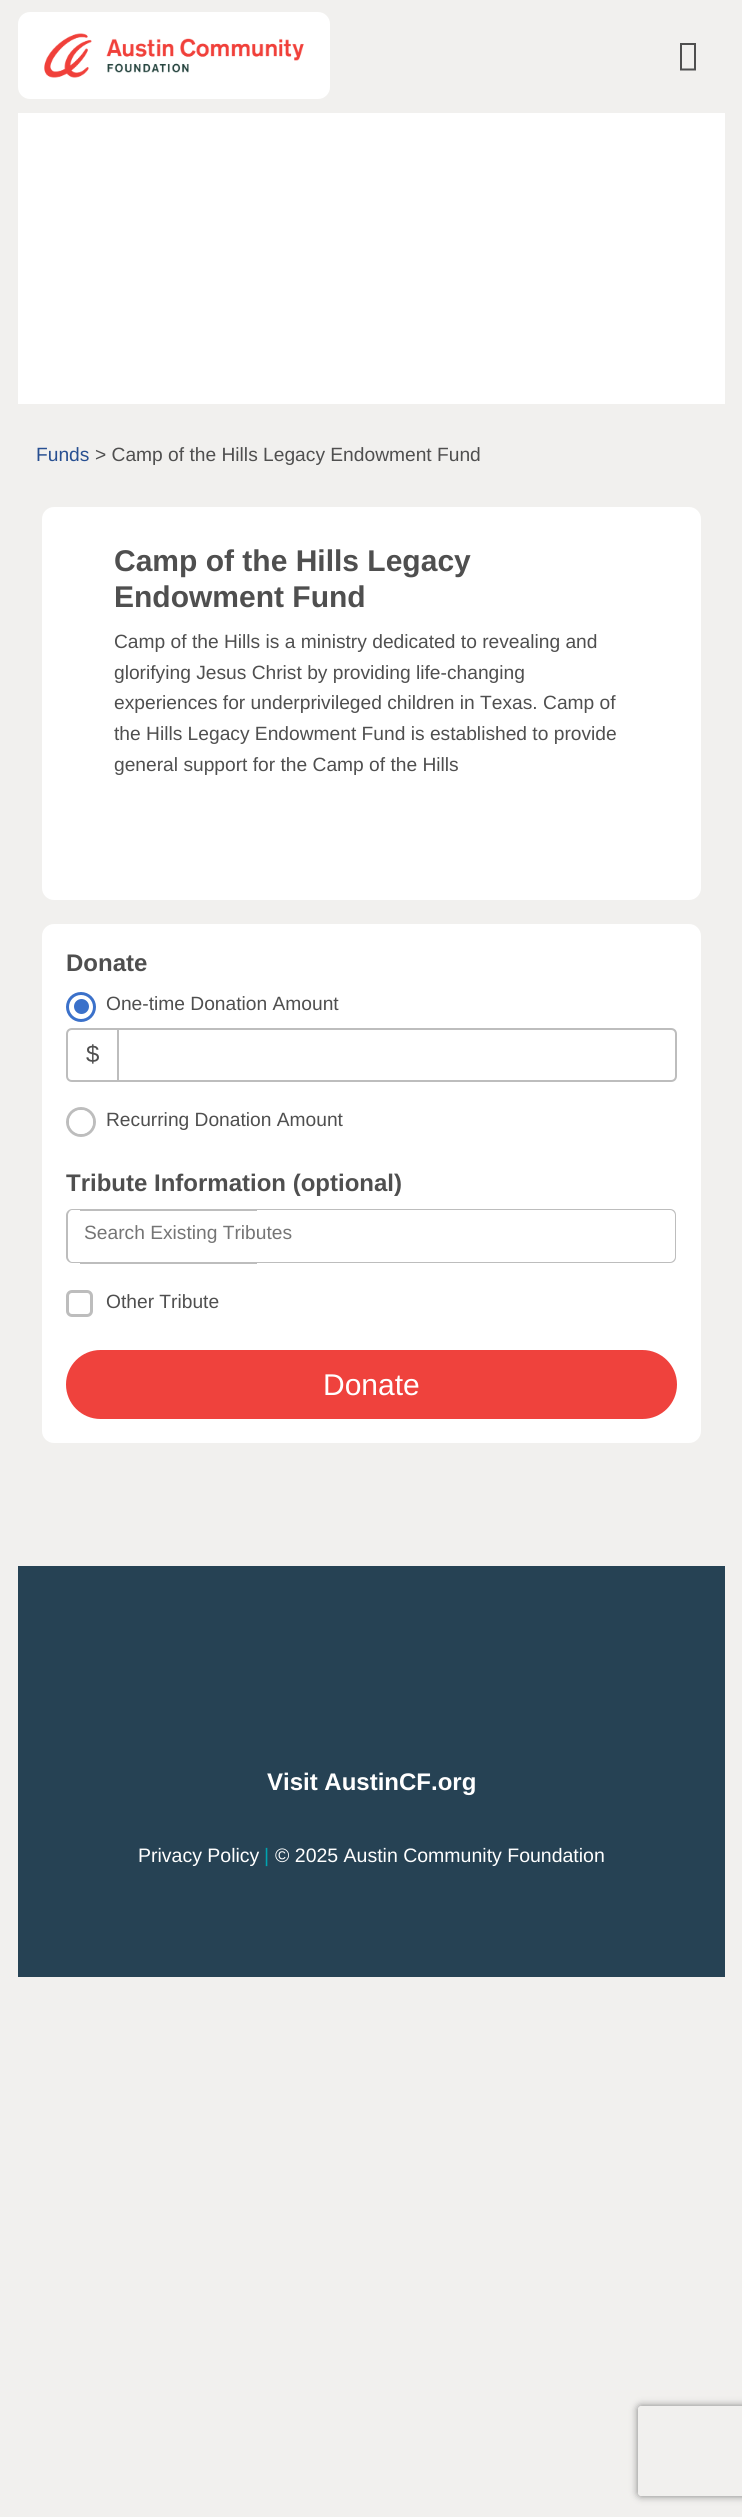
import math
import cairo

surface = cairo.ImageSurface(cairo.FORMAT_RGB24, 742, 2517)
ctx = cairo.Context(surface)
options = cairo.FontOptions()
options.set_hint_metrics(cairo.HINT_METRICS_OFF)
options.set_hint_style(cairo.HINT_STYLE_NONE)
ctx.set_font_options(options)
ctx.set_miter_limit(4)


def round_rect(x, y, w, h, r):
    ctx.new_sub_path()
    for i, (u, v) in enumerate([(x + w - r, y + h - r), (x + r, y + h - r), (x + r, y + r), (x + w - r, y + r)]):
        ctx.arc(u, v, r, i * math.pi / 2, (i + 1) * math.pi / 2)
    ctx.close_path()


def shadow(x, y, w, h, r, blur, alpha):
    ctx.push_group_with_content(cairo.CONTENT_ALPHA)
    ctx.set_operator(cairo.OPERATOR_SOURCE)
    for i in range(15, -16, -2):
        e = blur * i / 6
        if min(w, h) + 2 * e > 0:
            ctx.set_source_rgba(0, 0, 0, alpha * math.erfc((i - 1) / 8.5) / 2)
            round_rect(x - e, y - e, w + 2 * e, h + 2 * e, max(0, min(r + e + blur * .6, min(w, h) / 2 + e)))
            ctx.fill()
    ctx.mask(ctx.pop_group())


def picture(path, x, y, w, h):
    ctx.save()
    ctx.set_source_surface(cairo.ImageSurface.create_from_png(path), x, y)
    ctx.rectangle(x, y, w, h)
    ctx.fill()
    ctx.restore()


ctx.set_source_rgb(0.945, 0.941, 0.933)
ctx.paint()
ctx.set_source_rgb(1, 1, 1)
round_rect(18, 12, 312, 87, 12)
ctx.fill()
picture("img1.png", 44, 33, 260, 45)
ctx.set_source_rgb(0.31, 0.31, 0.31)
ctx.new_path()
ctx.move_to(680, 70.5)
ctx.line_to(680, 43)
ctx.line_to(696, 43)
ctx.line_to(696, 70.5)
ctx.close_path()
ctx.move_to(682, 68.5)
ctx.line_to(694, 68.5)
ctx.line_to(694, 45)
ctx.line_to(682, 45)
ctx.close_path()
ctx.fill()
ctx.set_source_rgb(1, 1, 1)
ctx.rectangle(18, 113, 707, 291)
ctx.fill()
ctx.select_font_face("Liberation Sans")
ctx.set_font_size(19.2)
ctx.set_source_rgb(0.153, 0.31, 0.569)
ctx.move_to(36, 461)
ctx.show_text("Funds")
ctx.set_source_rgb(0.31, 0.31, 0.31)
ctx.move_to(95, 461)
ctx.show_text("> Camp of the Hills Legacy Endowment Fund")
ctx.set_source_rgb(1, 1, 1)
round_rect(42, 507, 659, 393, 12)
ctx.fill()
ctx.select_font_face("Liberation Sans", cairo.FONT_SLANT_NORMAL, cairo.FONT_WEIGHT_BOLD)
ctx.set_font_size(30)
ctx.set_source_rgb(0.31, 0.31, 0.31)
ctx.move_to(114, 571)
ctx.show_text("Camp of the Hills Legacy")
ctx.move_to(114, 607)
ctx.show_text("Endowment Fund")
ctx.select_font_face("Liberation Sans")
ctx.set_font_size(19.2)
ctx.move_to(114, 648)
ctx.show_text("Camp of the Hills is a ministry dedicated to revealing and")
ctx.move_to(114, 679)
ctx.show_text("glorifying Jesus Christ by providing life-changing")
ctx.move_to(114, 709)
ctx.show_text("experiences for underprivileged children in Texas. Camp of")
ctx.move_to(114, 740)
ctx.show_text("the Hills Legacy Endowment Fund is established to provide")
ctx.move_to(114, 771)
ctx.show_text("general support for the Camp of the Hills")
ctx.set_source_rgb(1, 1, 1)
round_rect(42, 924, 659, 519, 12)
ctx.fill()
ctx.select_font_face("Liberation Sans", cairo.FONT_SLANT_NORMAL, cairo.FONT_WEIGHT_BOLD)
ctx.set_font_size(24)
ctx.set_source_rgb(0.31, 0.31, 0.31)
ctx.move_to(66, 971)
ctx.show_text("Donate")
ctx.new_path()
ctx.arc(81, 1007, 13.5, 0, 2 * math.pi)
ctx.set_source_rgb(0.231, 0.443, 0.792)
ctx.set_line_width(3)
ctx.stroke()
ctx.arc(81.5, 1006.5, 7.5, 0, 2 * math.pi)
ctx.fill()
ctx.select_font_face("Liberation Sans")
ctx.set_font_size(19.2)
ctx.set_source_rgb(0.31, 0.31, 0.31)
ctx.move_to(106, 1010)
ctx.show_text("One-time Donation Amount")
ctx.new_path()
ctx.move_to(72, 1029)
ctx.line_to(118, 1029)
ctx.line_to(118, 1081)
ctx.line_to(72, 1081)
ctx.curve_to(69, 1081, 67, 1079, 67, 1076)
ctx.line_to(67, 1034)
ctx.curve_to(67, 1031, 69, 1029, 72, 1029)
ctx.close_path()
ctx.set_source_rgb(0.741, 0.741, 0.741)
ctx.set_line_width(2)
ctx.stroke()
ctx.set_font_size(24)
ctx.set_source_rgb(0.31, 0.31, 0.31)
ctx.move_to(86, 1062)
ctx.show_text("$")
ctx.new_path()
ctx.move_to(118, 1029)
ctx.line_to(671, 1029)
ctx.curve_to(674, 1029, 676, 1031, 676, 1034)
ctx.line_to(676, 1076)
ctx.curve_to(676, 1079, 674, 1081, 671, 1081)
ctx.line_to(118, 1081)
ctx.close_path()
ctx.set_source_rgb(0.741, 0.741, 0.741)
ctx.stroke()
ctx.arc(81, 1122, 13.5, 0, 2 * math.pi)
ctx.set_line_width(3)
ctx.stroke()
ctx.set_source_rgb(1, 1, 1)
ctx.arc(81, 1122, 12, 0, 2 * math.pi)
ctx.fill()
ctx.set_font_size(19.2)
ctx.set_source_rgb(0.31, 0.31, 0.31)
ctx.move_to(106, 1126)
ctx.show_text("Recurring Donation Amount")
ctx.select_font_face("Liberation Sans", cairo.FONT_SLANT_NORMAL, cairo.FONT_WEIGHT_BOLD)
ctx.set_font_size(24)
ctx.move_to(66, 1191)
ctx.show_text("Tribute Information (optional)")
ctx.set_source_rgb(0.741, 0.741, 0.741)
ctx.set_fill_rule(cairo.FILL_RULE_EVEN_ODD)
ctx.new_path()
ctx.move_to(72, 1209)
ctx.line_to(80, 1209)
ctx.line_to(80, 1263)
ctx.line_to(72, 1263)
ctx.curve_to(69, 1263, 66, 1260, 66, 1257)
ctx.line_to(66, 1215)
ctx.curve_to(66, 1212, 69, 1209, 72, 1209)
ctx.close_path()
ctx.move_to(72, 1210)
ctx.line_to(80, 1210)
ctx.line_to(80, 1262)
ctx.line_to(72, 1262)
ctx.curve_to(70, 1262, 68, 1259, 68, 1257)
ctx.line_to(68, 1215)
ctx.curve_to(68, 1213, 70, 1210, 72, 1210)
ctx.close_path()
ctx.fill()
ctx.rectangle(80, 1209, 177, 2)
ctx.fill()
ctx.rectangle(80, 1262, 177, 2)
ctx.fill()
ctx.select_font_face("Liberation Sans")
ctx.set_font_size(19.2)
ctx.set_source_rgb(0.459, 0.459, 0.459)
ctx.move_to(84, 1239)
ctx.show_text("Search Existing Tributes")
ctx.set_source_rgb(0.741, 0.741, 0.741)
ctx.new_path()
ctx.move_to(256, 1209)
ctx.line_to(670, 1209)
ctx.curve_to(674, 1209, 676, 1212, 676, 1215)
ctx.line_to(676, 1257)
ctx.curve_to(676, 1260, 674, 1263, 670, 1263)
ctx.line_to(256, 1263)
ctx.close_path()
ctx.move_to(256, 1210)
ctx.line_to(670, 1210)
ctx.curve_to(673, 1210, 675, 1213, 675, 1215)
ctx.line_to(675, 1257)
ctx.curve_to(675, 1259, 673, 1262, 670, 1262)
ctx.line_to(256, 1262)
ctx.close_path()
ctx.fill()
round_rect(67.5, 1291.5, 24, 24, 4.5)
ctx.stroke()
ctx.set_source_rgb(0.31, 0.31, 0.31)
ctx.move_to(106, 1308)
ctx.show_text("Other Tribute")
ctx.set_source_rgb(0.937, 0.259, 0.239)
round_rect(66, 1350, 611, 69, 34.5)
ctx.fill()
ctx.set_font_size(30)
ctx.set_source_rgb(1, 1, 1)
ctx.move_to(323, 1395)
ctx.show_text("Donate")
ctx.set_source_rgb(0.149, 0.259, 0.329)
ctx.rectangle(18, 1566, 707, 411)
ctx.fill()
ctx.select_font_face("Liberation Sans", cairo.FONT_SLANT_NORMAL, cairo.FONT_WEIGHT_BOLD)
ctx.set_font_size(24)
ctx.set_source_rgb(1, 1, 1)
ctx.move_to(267, 1790)
ctx.show_text("Visit AustinCF.org")
ctx.select_font_face("Liberation Sans")
ctx.set_font_size(19.5)
ctx.move_to(138, 1862)
ctx.show_text("Privacy Policy")
ctx.set_source_rgb(0, 0.643, 0.69)
ctx.move_to(264, 1862)
ctx.show_text("|")
ctx.set_source_rgb(1, 1, 1)
ctx.move_to(275, 1862)
ctx.show_text("© 2025 Austin Community Foundation")
ctx.save()
ctx.new_path()
ctx.move_to(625, 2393)
ctx.line_to(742, 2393)
ctx.line_to(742, 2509)
ctx.line_to(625, 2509)
ctx.close_path()
ctx.move_to(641, 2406)
ctx.line_to(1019, 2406)
ctx.curve_to(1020.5, 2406, 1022, 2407.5, 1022, 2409)
ctx.line_to(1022, 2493)
ctx.curve_to(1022, 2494.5, 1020.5, 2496, 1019, 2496)
ctx.line_to(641, 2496)
ctx.curve_to(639.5, 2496, 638, 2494.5, 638, 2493)
ctx.line_to(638, 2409)
ctx.curve_to(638, 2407.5, 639.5, 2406, 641, 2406)
ctx.close_path()
ctx.clip()
ctx.set_source_rgb(0.502, 0.502, 0.502)
shadow(638, 2406, 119, 90, 3, 4, 1)
ctx.restore()
surface.write_to_png("page.png")
